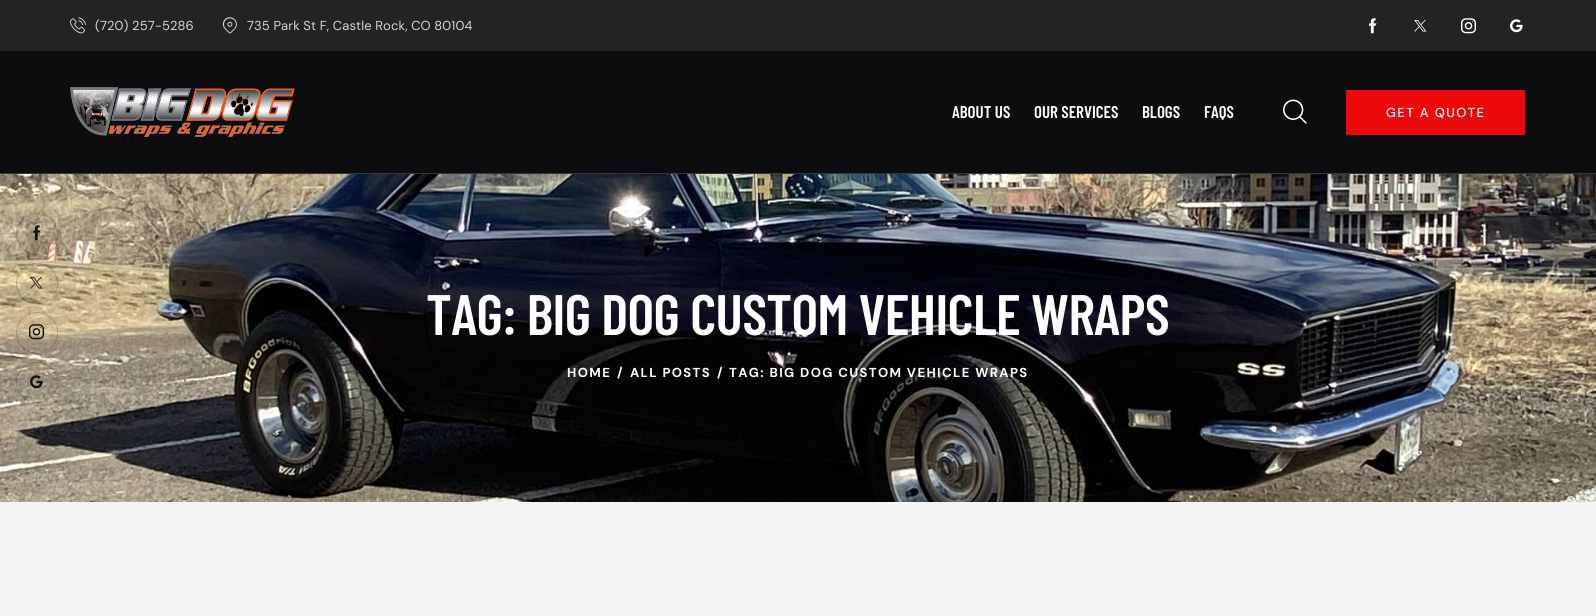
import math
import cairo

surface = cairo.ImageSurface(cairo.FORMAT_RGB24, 1596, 616)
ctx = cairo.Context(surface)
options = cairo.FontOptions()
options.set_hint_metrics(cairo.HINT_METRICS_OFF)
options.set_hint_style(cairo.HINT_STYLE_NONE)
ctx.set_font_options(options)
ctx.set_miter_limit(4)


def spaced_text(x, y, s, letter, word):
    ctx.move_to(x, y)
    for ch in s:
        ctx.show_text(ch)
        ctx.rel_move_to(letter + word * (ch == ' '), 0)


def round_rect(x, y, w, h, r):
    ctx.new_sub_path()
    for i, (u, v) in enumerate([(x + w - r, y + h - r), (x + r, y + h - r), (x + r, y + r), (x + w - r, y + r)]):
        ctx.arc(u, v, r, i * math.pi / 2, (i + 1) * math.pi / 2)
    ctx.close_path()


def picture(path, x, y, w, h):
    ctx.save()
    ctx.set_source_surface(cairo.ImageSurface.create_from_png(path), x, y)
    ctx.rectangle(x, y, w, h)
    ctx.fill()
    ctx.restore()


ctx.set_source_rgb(0.957, 0.957, 0.957)
ctx.paint()
picture("img13.png", 0, 174, 1596, 328)
ctx.arc(37, 234, 20.5, 0, 2 * math.pi)
ctx.set_source_rgba(0.071, 0.067, 0.078, 0.2)
ctx.set_line_width(1)
ctx.stroke()
picture("img1.png", 33, 225, 8, 16)
round_rect(16.5, 263.5, 41, 40, 20)
ctx.stroke()
picture("img2.png", 30, 277, 13, 12)
ctx.arc(37, 333, 20.5, 0, 2 * math.pi)
ctx.stroke()
picture("img3.png", 29, 324, 15, 16)
round_rect(16.5, 362.5, 41, 40, 20)
ctx.stroke()
picture("img4.png", 30, 375, 13, 14)
ctx.set_source_rgb(0.137, 0.133, 0.145)
ctx.rectangle(0, 0, 1596, 51)
ctx.fill()
picture("img5.png", 70, 17, 16, 17)
ctx.select_font_face("DM Sans")
ctx.set_font_size(13)
ctx.set_source_rgb(0.839, 0.839, 0.847)
spaced_text(95, 30, "(720) 257-5286", 0.1, 0)
picture("img6.png", 222, 17, 15, 17)
spaced_text(247, 30, "735 Park St F, Castle Rock, CO 80104", 0.1, 0)
picture("img7.png", 1369, 18, 8, 16)
picture("img8.png", 1414, 20, 13, 12)
picture("img9.png", 1461, 18, 15, 16)
picture("img10.png", 1510, 19, 13, 14)
ctx.set_source_rgb(0.051, 0.047, 0.059)
ctx.rectangle(0, 51, 1596, 122)
ctx.fill()
picture("img11.png", 70, 87, 225, 50)
ctx.select_font_face("Barlow Condensed SemiBold")
ctx.set_font_size(17)
ctx.set_source_rgb(1, 1, 1)
ctx.move_to(952, 118)
ctx.show_text("ABOUT US")
ctx.move_to(1034, 118)
ctx.show_text("OUR SERVICES")
ctx.move_to(1142, 118)
ctx.show_text("BLOGS")
ctx.move_to(1204, 118)
ctx.show_text("FAQS")
picture("img12.png", 1283, 99, 24, 25)
ctx.set_source_rgb(0.918, 0.039, 0.043)
ctx.rectangle(1346, 90, 179, 45)
ctx.fill()
ctx.select_font_face("DM Sans Medium")
ctx.set_font_size(13)
ctx.set_source_rgb(1, 1, 1)
spaced_text(1386, 117, "GET A QUOTE", 1.4, 0)
ctx.set_source_rgb(0.212, 0.208, 0.216)
ctx.rectangle(0, 173, 1596, 1)
ctx.fill()
ctx.select_font_face("Barlow Condensed SemiBold")
ctx.set_font_size(57)
ctx.set_source_rgb(1, 1, 1)
spaced_text(426, 335, "TAG: BIG DOG CUSTOM VEHICLE WRAPS", -0.6, 0)
ctx.select_font_face("DM Sans", cairo.FONT_SLANT_NORMAL, cairo.FONT_WEIGHT_BOLD)
ctx.set_font_size(13)
spaced_text(567, 377, "HOME", 1.4, 0)
spaced_text(617, 377, "/", 1.4, 0)
spaced_text(630, 377, "ALL POSTS", 1.4, 0)
spaced_text(717, 377, "/", 1.4, 0)
spaced_text(729, 377, "TAG: BIG DOG CUSTOM VEHICLE WRAPS", 1.4, 0)
surface.write_to_png("page.png")
